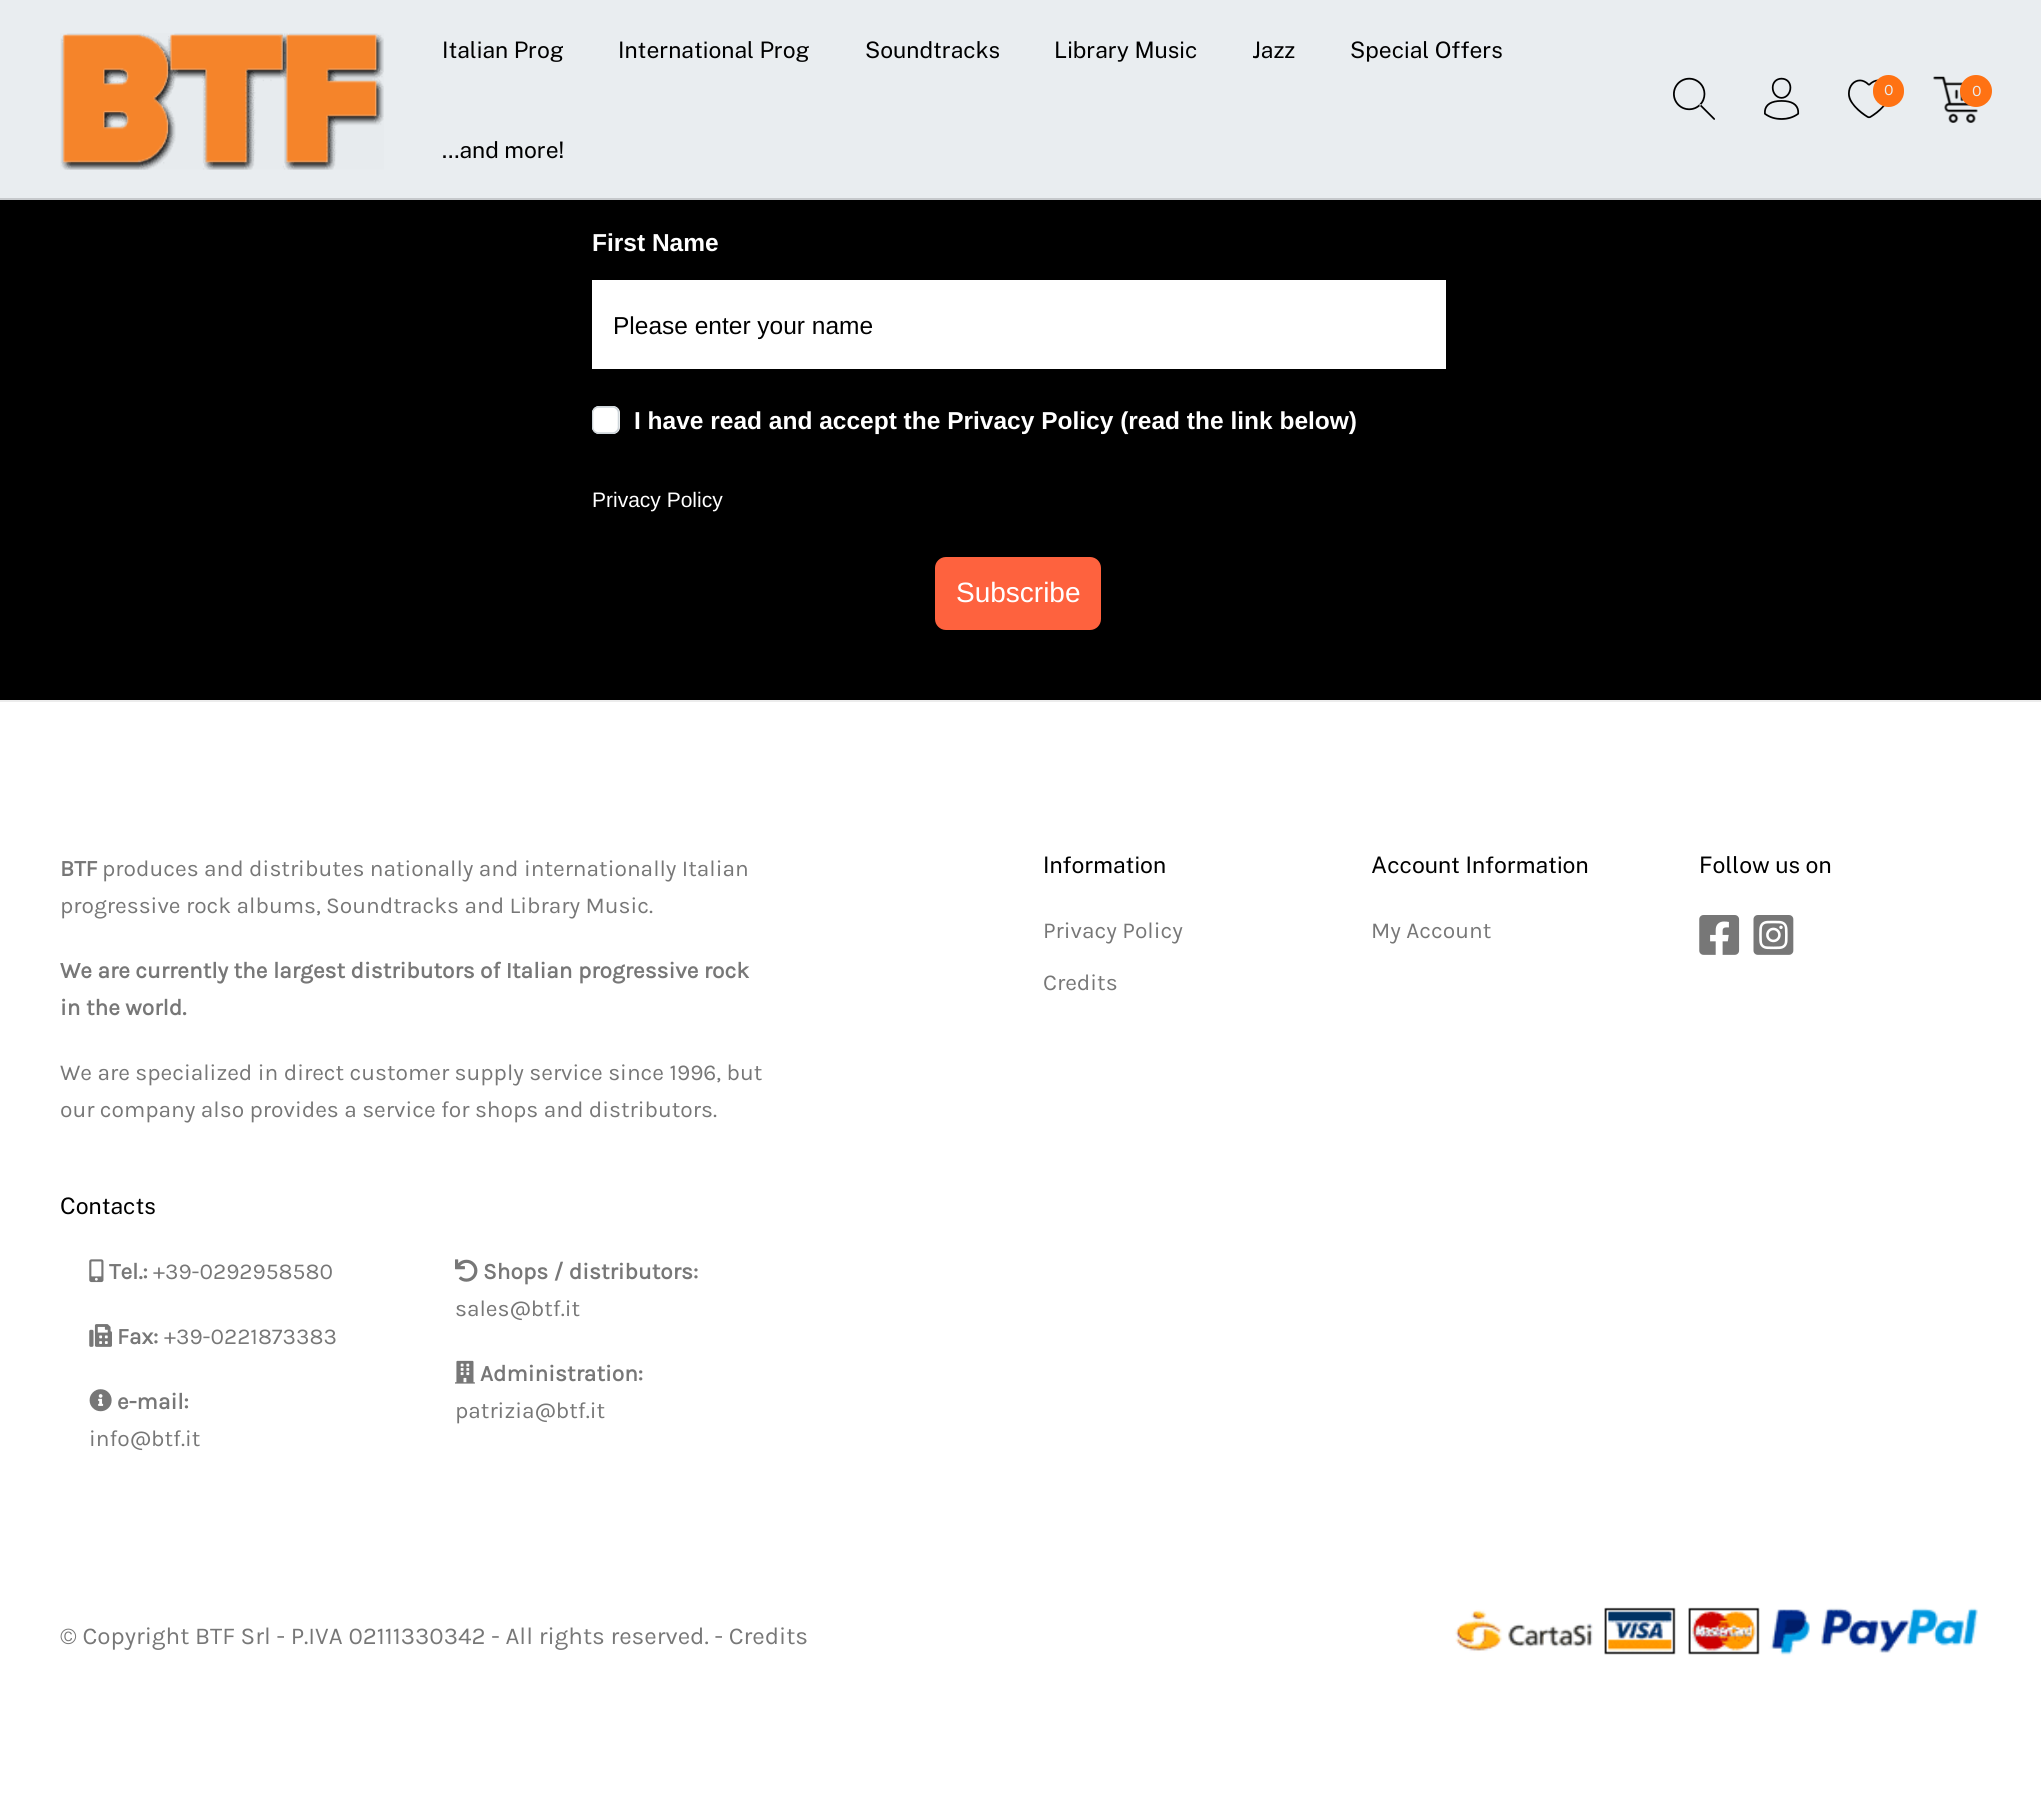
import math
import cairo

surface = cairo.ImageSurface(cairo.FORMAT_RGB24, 2041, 1804)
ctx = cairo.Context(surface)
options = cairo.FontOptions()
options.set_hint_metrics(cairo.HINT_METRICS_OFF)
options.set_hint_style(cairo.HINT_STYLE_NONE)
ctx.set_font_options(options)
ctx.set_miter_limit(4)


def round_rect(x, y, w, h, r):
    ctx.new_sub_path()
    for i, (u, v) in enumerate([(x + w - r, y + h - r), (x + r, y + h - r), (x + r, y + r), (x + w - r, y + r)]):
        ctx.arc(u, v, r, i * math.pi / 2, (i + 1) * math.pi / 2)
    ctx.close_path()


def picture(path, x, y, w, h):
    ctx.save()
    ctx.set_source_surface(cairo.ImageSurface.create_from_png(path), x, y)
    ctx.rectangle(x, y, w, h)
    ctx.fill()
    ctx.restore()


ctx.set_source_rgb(0, 0, 0)
ctx.paint()
ctx.set_source_rgb(0.914, 0.929, 0.941)
ctx.rectangle(0, 0, 2041, 198)
ctx.fill()
picture("img1.png", 60, 33, 324, 137)
ctx.select_font_face("Public Sans")
ctx.set_font_size(22.75)
ctx.set_source_rgb(0, 0, 0)
ctx.move_to(442, 58)
ctx.show_text("Italian Prog")
ctx.move_to(618, 58)
ctx.show_text("International Prog")
ctx.move_to(865, 58)
ctx.show_text("Soundtracks")
ctx.move_to(1054, 58)
ctx.show_text("Library Music")
ctx.move_to(1252, 58)
ctx.show_text("Jazz")
ctx.move_to(1350, 58)
ctx.show_text("Special Offers")
ctx.move_to(442, 158)
ctx.show_text("…and more!")
picture("img2.png", 1673, 77, 42, 43)
picture("img3.png", 1764, 77, 36, 43)
picture("img4.png", 1848, 79, 37, 40)
ctx.set_source_rgb(1, 0.447, 0.078)
round_rect(1873, 75, 31, 32, 15.5)
ctx.fill()
ctx.select_font_face("Karla")
ctx.set_font_size(16)
ctx.set_source_rgb(0.914, 0.929, 0.941)
ctx.move_to(1884, 95)
ctx.show_text("0")
picture("img5.png", 1933, 76, 45, 47)
ctx.set_source_rgb(1, 0.447, 0.078)
ctx.arc(1976, 91, 16, 0, 2 * math.pi)
ctx.fill()
ctx.set_source_rgb(0.914, 0.929, 0.941)
ctx.move_to(1972, 96)
ctx.show_text("0")
ctx.set_source_rgb(0.776, 0.788, 0.8)
ctx.rectangle(0, 198, 2041, 2)
ctx.fill()
ctx.select_font_face("Liberation Sans", cairo.FONT_SLANT_NORMAL, cairo.FONT_WEIGHT_BOLD)
ctx.set_font_size(24.5)
ctx.set_source_rgb(1, 1, 1)
ctx.move_to(592, 251)
ctx.show_text("First Name")
ctx.rectangle(592, 280, 854, 89)
ctx.fill()
ctx.select_font_face("Liberation Sans")
ctx.set_source_rgb(0, 0, 0)
ctx.move_to(613, 334)
ctx.show_text("Please enter your name")
ctx.set_source_rgb(1, 1, 1)
round_rect(592, 406, 28, 28, 7)
ctx.fill()
picture("img6.png", 592, 406, 28, 28)
ctx.select_font_face("Liberation Sans", cairo.FONT_SLANT_NORMAL, cairo.FONT_WEIGHT_BOLD)
ctx.move_to(634, 429)
ctx.show_text("I have read and accept the Privacy Policy (read the link below)")
ctx.select_font_face("Liberation Sans")
ctx.set_font_size(21)
ctx.move_to(592, 507)
ctx.show_text("Privacy Policy")
ctx.set_source_rgb(0.996, 0.384, 0.243)
round_rect(935, 557, 166, 73, 11)
ctx.fill()
ctx.set_font_size(28)
ctx.set_source_rgb(1, 1, 1)
ctx.move_to(956, 602)
ctx.show_text("Subscribe")
ctx.rectangle(0, 702, 2041, 1102)
ctx.fill()
ctx.set_source_rgb(0.922, 0.922, 0.922)
ctx.rectangle(0, 700, 2041, 2)
ctx.fill()
ctx.select_font_face("Karla", cairo.FONT_SLANT_NORMAL, cairo.FONT_WEIGHT_BOLD)
ctx.set_font_size(22.75)
ctx.set_source_rgb(0.467, 0.467, 0.467)
ctx.move_to(60, 876)
ctx.show_text("BTF")
ctx.select_font_face("Karla")
ctx.move_to(102, 876)
ctx.show_text("produces and distributes nationally and internationally Italian")
ctx.move_to(60, 913)
ctx.show_text("progressive rock albums, Soundtracks and Library Music.")
ctx.select_font_face("Karla", cairo.FONT_SLANT_NORMAL, cairo.FONT_WEIGHT_BOLD)
ctx.move_to(60, 978)
ctx.show_text("We are currently the largest distributors of Italian progressive rock")
ctx.move_to(60, 1015)
ctx.show_text("in the world.")
ctx.select_font_face("Karla")
ctx.move_to(60, 1080)
ctx.show_text("We are specialized in direct customer supply service since 1996, but")
ctx.move_to(60, 1117)
ctx.show_text("our company also provides a service for shops and distributors.")
ctx.select_font_face("Public Sans")
ctx.set_source_rgb(0, 0, 0)
ctx.move_to(60, 1214)
ctx.show_text("Contacts")
picture("img7.png", 89, 1259, 15, 24)
ctx.select_font_face("Karla", cairo.FONT_SLANT_NORMAL, cairo.FONT_WEIGHT_BOLD)
ctx.set_source_rgb(0.467, 0.467, 0.467)
ctx.move_to(109, 1279)
ctx.show_text("Tel.:")
ctx.select_font_face("Karla")
ctx.move_to(153, 1279)
ctx.show_text("+39-0292958580")
picture("img8.png", 89, 1324, 23, 23)
ctx.select_font_face("Karla", cairo.FONT_SLANT_NORMAL, cairo.FONT_WEIGHT_BOLD)
ctx.move_to(117, 1344)
ctx.show_text("Fax:")
ctx.select_font_face("Karla")
ctx.move_to(164, 1344)
ctx.show_text("+39-0221873383")
picture("img9.png", 89, 1389, 23, 23)
ctx.select_font_face("Karla", cairo.FONT_SLANT_NORMAL, cairo.FONT_WEIGHT_BOLD)
ctx.move_to(117, 1409)
ctx.show_text("e-mail:")
ctx.select_font_face("Karla")
ctx.move_to(89, 1446)
ctx.show_text("info@btf.it")
picture("img10.png", 455, 1259, 23, 23)
ctx.select_font_face("Karla", cairo.FONT_SLANT_NORMAL, cairo.FONT_WEIGHT_BOLD)
ctx.move_to(483, 1279)
ctx.show_text("Shops / distributors:")
ctx.select_font_face("Karla")
ctx.move_to(455, 1316)
ctx.show_text("sales@btf.it")
picture("img11.png", 455, 1360, 20, 24)
ctx.select_font_face("Karla", cairo.FONT_SLANT_NORMAL, cairo.FONT_WEIGHT_BOLD)
ctx.move_to(480, 1381)
ctx.show_text("Administration:")
ctx.select_font_face("Karla")
ctx.move_to(455, 1418)
ctx.show_text("patrizia@btf.it")
ctx.select_font_face("Public Sans")
ctx.set_source_rgb(0, 0, 0)
ctx.move_to(1043, 873)
ctx.show_text("Information")
ctx.select_font_face("Karla")
ctx.set_source_rgb(0.467, 0.467, 0.467)
ctx.move_to(1043, 938)
ctx.show_text("Privacy Policy")
ctx.move_to(1043, 990)
ctx.show_text("Credits")
ctx.select_font_face("Public Sans")
ctx.set_source_rgb(0, 0, 0)
ctx.move_to(1371, 873)
ctx.show_text("Account Information")
ctx.select_font_face("Karla")
ctx.set_source_rgb(0.467, 0.467, 0.467)
ctx.move_to(1371, 938)
ctx.show_text("My Account")
ctx.select_font_face("Public Sans")
ctx.set_source_rgb(0, 0, 0)
ctx.move_to(1699, 873)
ctx.show_text("Follow us on")
picture("img12.png", 1699, 915, 41, 40)
picture("img13.png", 1753, 915, 41, 40)
ctx.select_font_face("Karla")
ctx.set_font_size(24.2)
ctx.set_source_rgb(0.467, 0.467, 0.467)
ctx.move_to(60, 1644)
ctx.show_text("© Copyright BTF Srl - P.IVA 02111330342 - All rights reserved. - Credits")
picture("img14.png", 1454, 1607, 524, 49)
surface.write_to_png("page.png")
